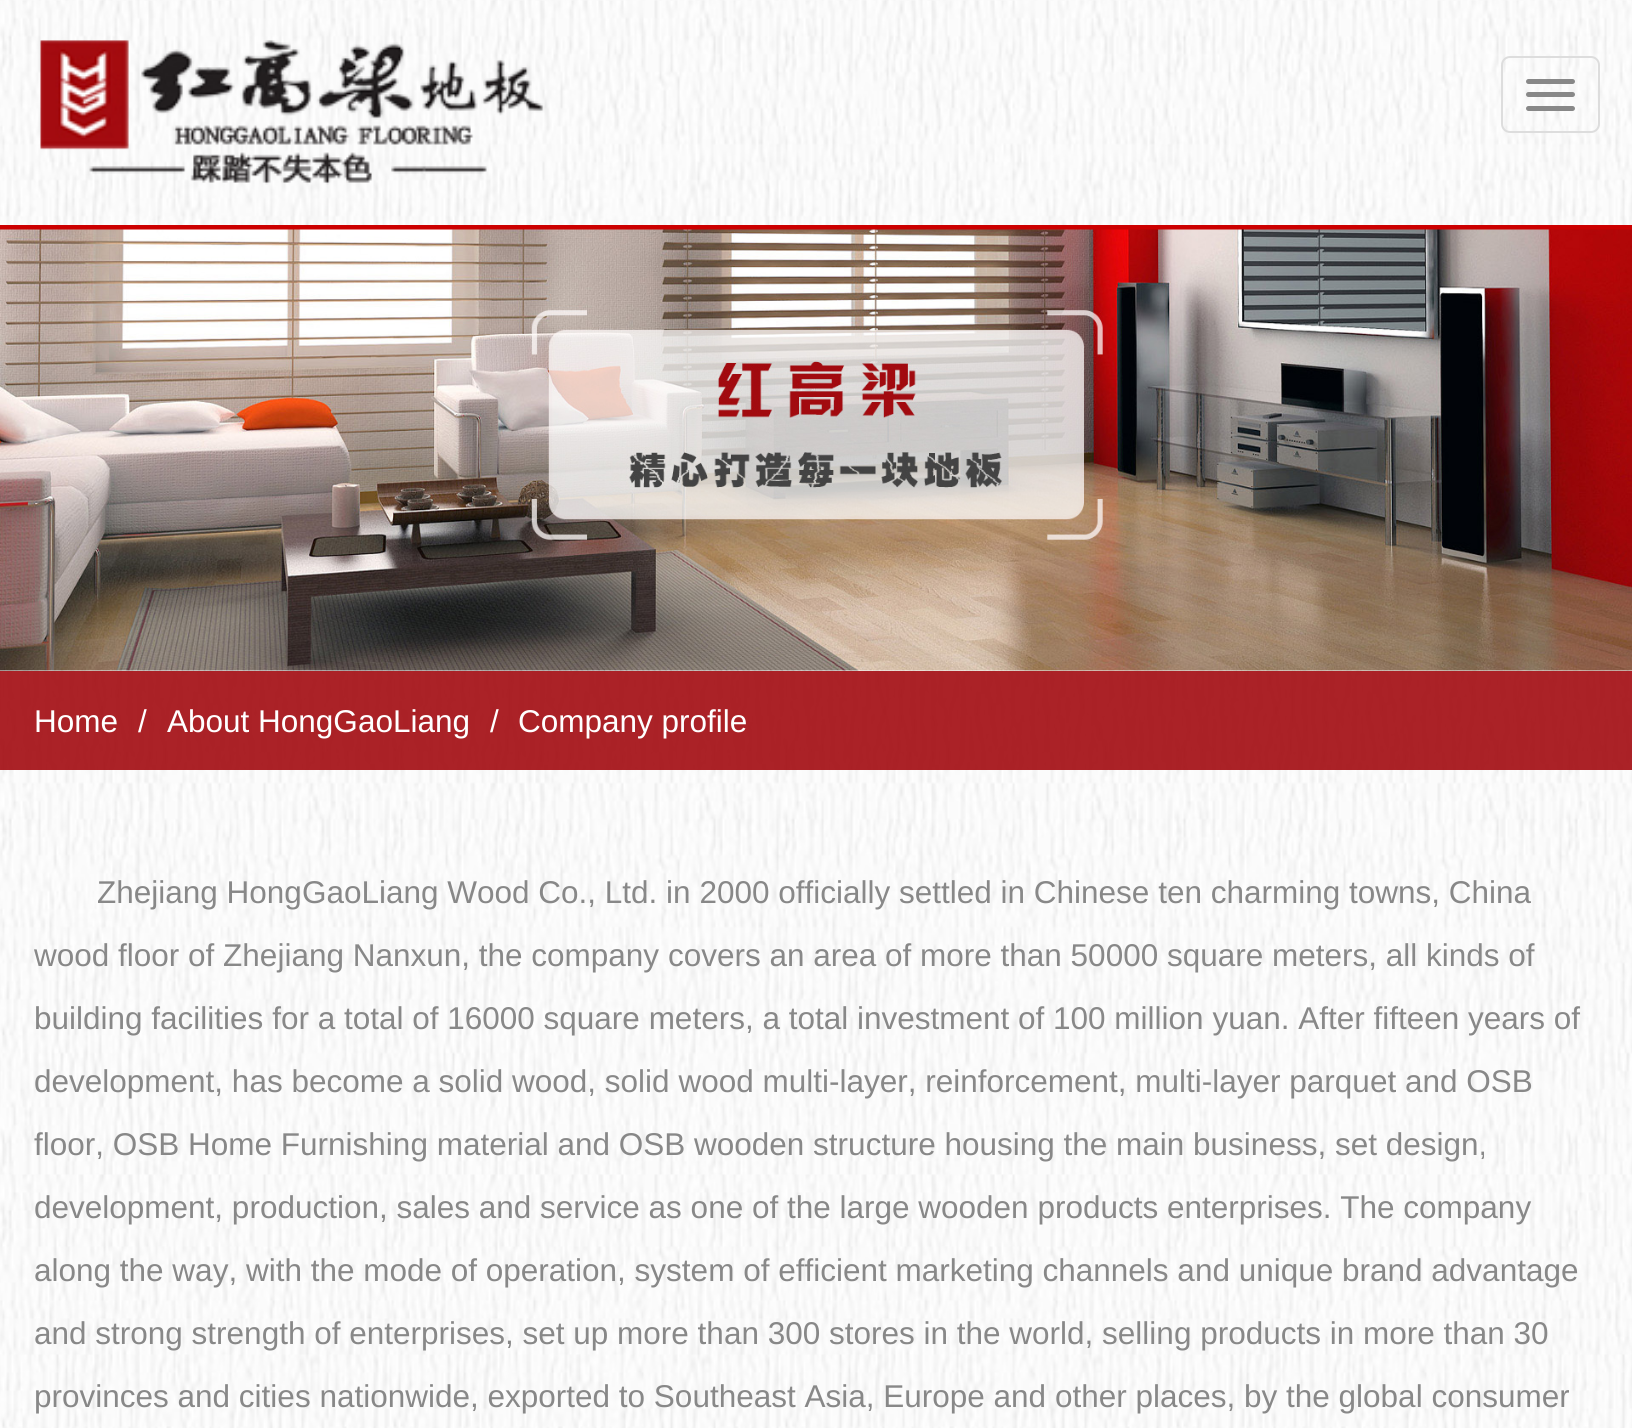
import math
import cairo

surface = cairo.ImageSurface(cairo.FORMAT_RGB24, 1632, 1428)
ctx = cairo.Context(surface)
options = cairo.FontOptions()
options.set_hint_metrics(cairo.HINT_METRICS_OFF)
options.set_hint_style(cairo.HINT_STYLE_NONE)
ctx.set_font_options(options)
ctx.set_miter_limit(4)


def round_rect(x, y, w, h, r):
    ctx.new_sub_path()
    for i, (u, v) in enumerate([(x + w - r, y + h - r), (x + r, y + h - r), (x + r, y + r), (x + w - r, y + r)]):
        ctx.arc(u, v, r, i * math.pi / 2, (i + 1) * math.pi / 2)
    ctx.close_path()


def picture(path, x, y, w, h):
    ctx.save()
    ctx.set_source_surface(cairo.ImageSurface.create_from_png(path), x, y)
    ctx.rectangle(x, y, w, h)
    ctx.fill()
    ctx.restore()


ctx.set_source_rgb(1, 1, 1)
ctx.paint()
picture("img1.png", 0, 0, 1632, 1428)
picture("img2.png", 40, 40, 505, 145)
round_rect(1502, 57, 97, 75, 8)
ctx.set_source_rgb(0.867, 0.867, 0.867)
ctx.stroke()
ctx.set_source_rgb(0.533, 0.533, 0.533)
round_rect(1526, 79, 49, 5, 2.5)
ctx.fill()
round_rect(1526, 92, 49, 5, 2.5)
ctx.fill()
round_rect(1526, 106, 49, 5, 2.5)
ctx.fill()
ctx.set_source_rgb(0.8, 0, 0)
ctx.rectangle(0, 225, 1632, 5)
ctx.fill()
picture("img3.png", 0, 229, 1632, 442)
ctx.set_source_rgba(0.635, 0.043, 0.063, 0.9)
ctx.rectangle(0, 671, 1632, 99)
ctx.fill()
ctx.select_font_face("Liberation Sans")
ctx.set_font_size(31.5)
ctx.set_source_rgb(1, 1, 1)
ctx.move_to(34, 732)
ctx.show_text("Home")
ctx.move_to(138, 732)
ctx.show_text("/")
ctx.move_to(167, 732)
ctx.show_text("About HongGaoLiang")
ctx.move_to(490, 732)
ctx.show_text("/")
ctx.move_to(518, 732)
ctx.show_text("Company profile")
ctx.set_source_rgb(0.533, 0.533, 0.533)
ctx.move_to(97, 903)
ctx.show_text("Zhejiang HongGaoLiang Wood Co., Ltd. in 2000 officially settled in Chinese ten charming towns, China")
ctx.move_to(34, 966)
ctx.show_text("wood floor of Zhejiang Nanxun, the company covers an area of more than 50000 square meters, all kinds of")
ctx.move_to(34, 1029)
ctx.show_text("building facilities for a total of 16000 square meters, a total investment of 100 million yuan. After fifteen years of")
ctx.move_to(34, 1092)
ctx.show_text("development, has become a solid wood, solid wood multi-layer, reinforcement, multi-layer parquet and OSB")
ctx.move_to(34, 1155)
ctx.show_text("floor, OSB Home Furnishing material and OSB wooden structure housing the main business, set design,")
ctx.move_to(34, 1218)
ctx.show_text("development, production, sales and service as one of the large wooden products enterprises. The company")
ctx.move_to(34, 1281)
ctx.show_text("along the way, with the mode of operation, system of efficient marketing channels and unique brand advantage")
ctx.move_to(34, 1344)
ctx.show_text("and strong strength of enterprises, set up more than 300 stores in the world, selling products in more than 30")
ctx.move_to(34, 1407)
ctx.show_text("provinces and cities nationwide, exported to Southeast Asia, Europe and other places, by the global consumer")
surface.write_to_png("page.png")
